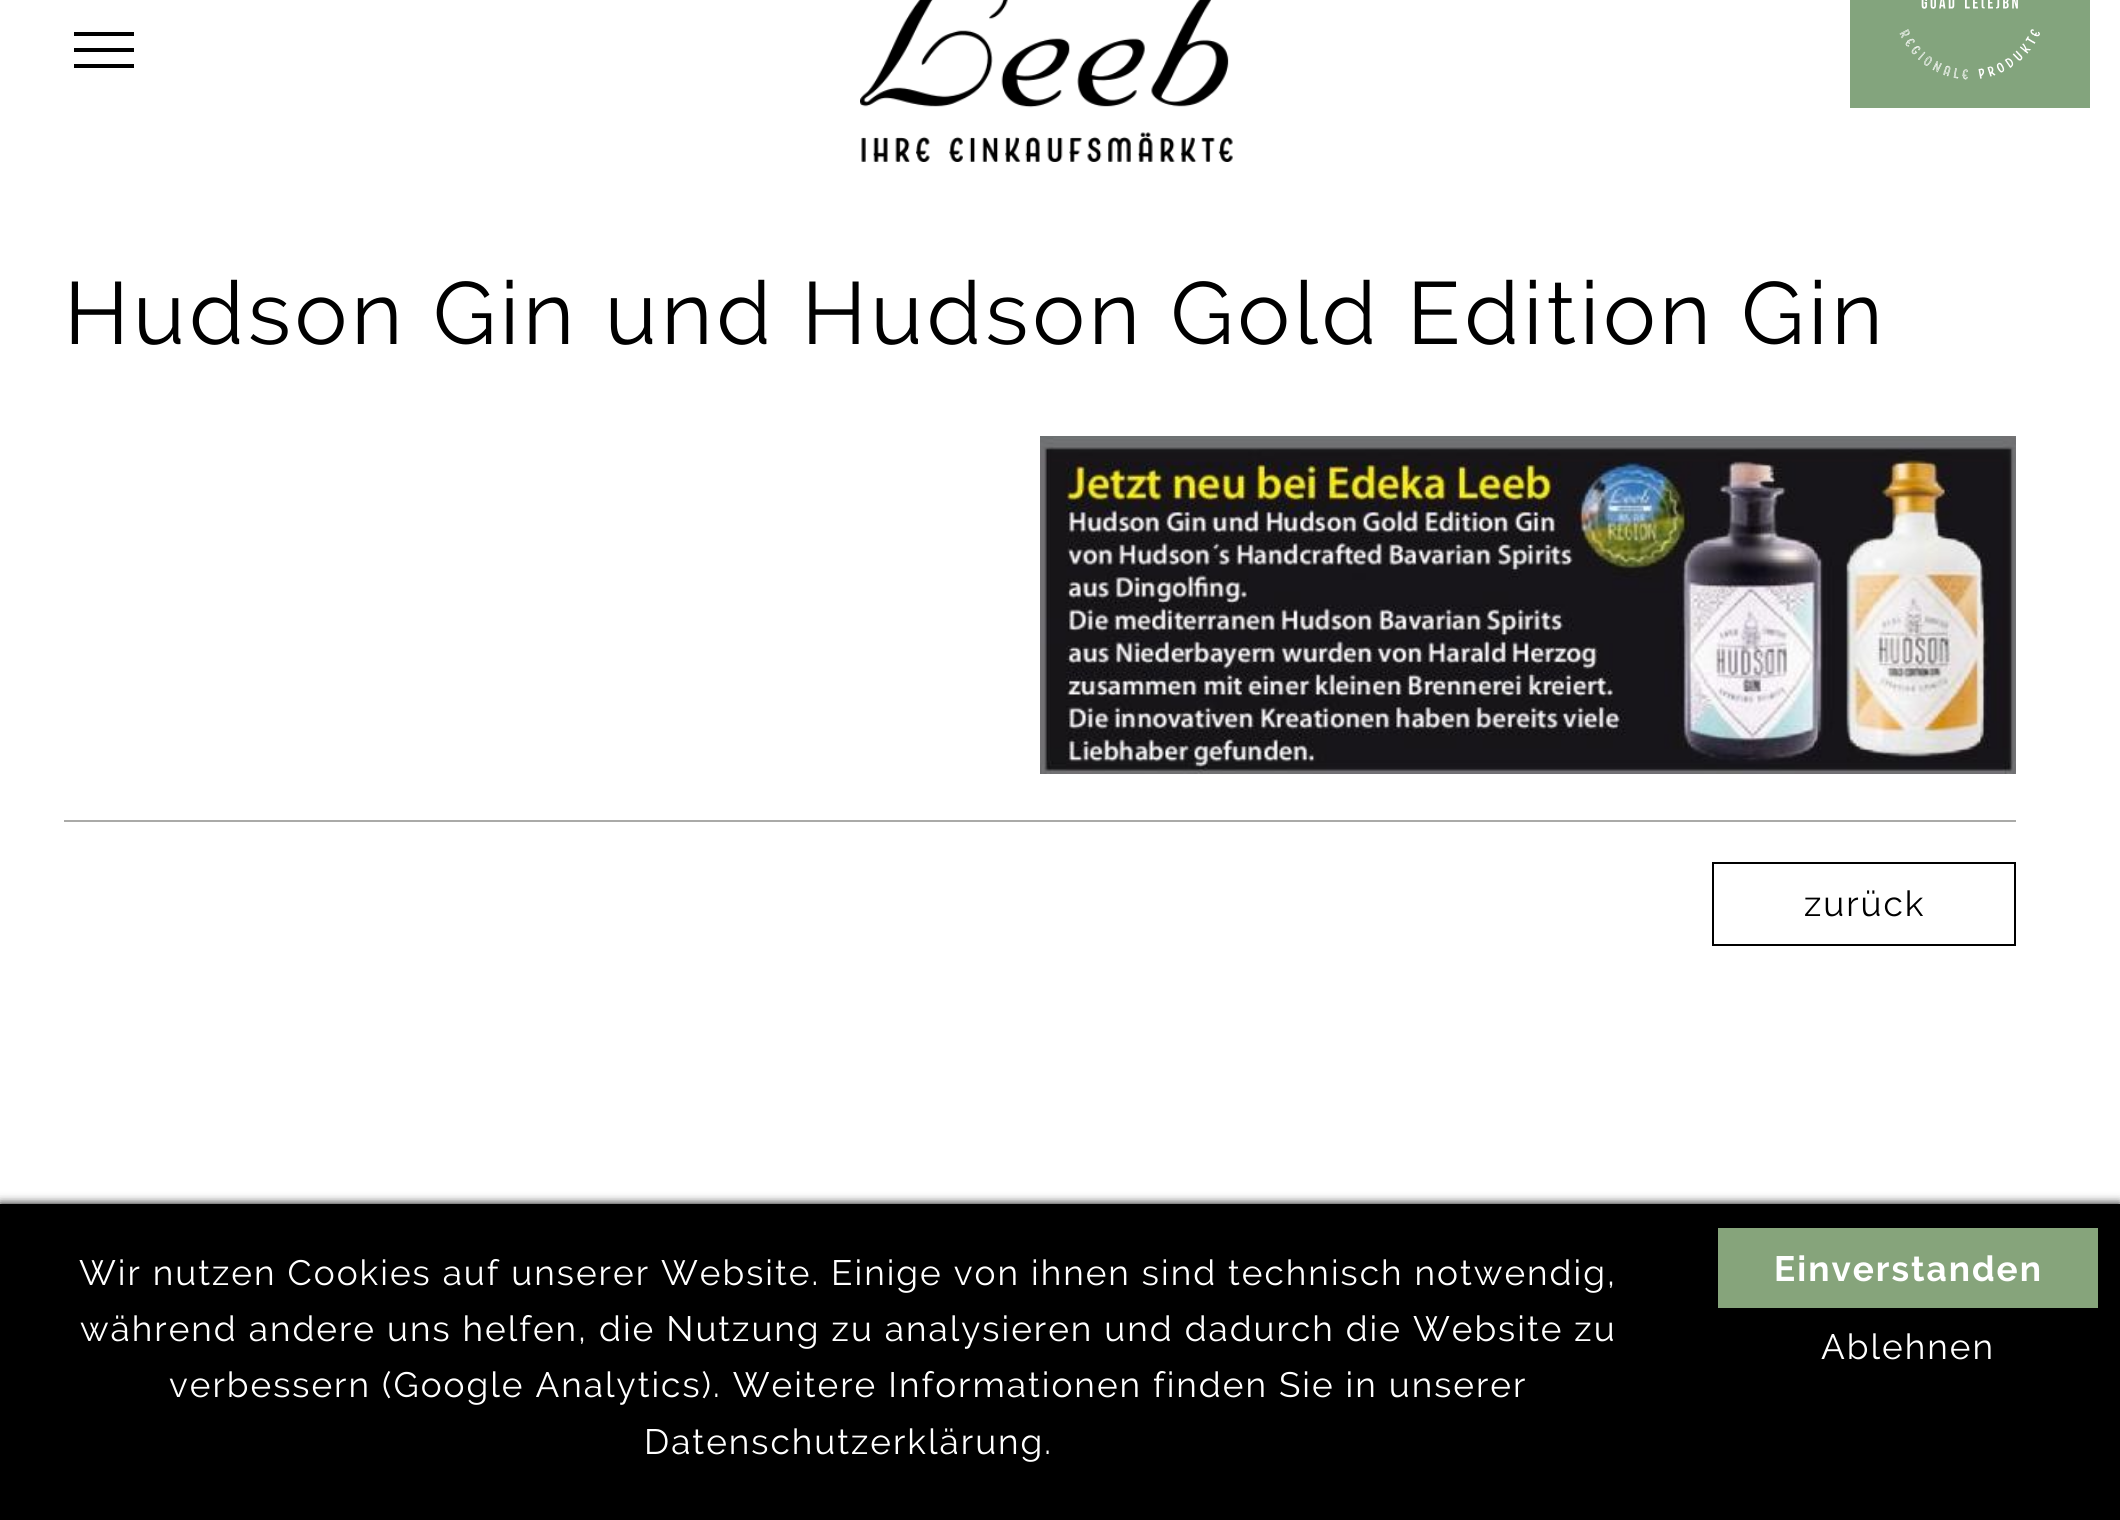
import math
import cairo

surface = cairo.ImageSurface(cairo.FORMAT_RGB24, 2120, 1520)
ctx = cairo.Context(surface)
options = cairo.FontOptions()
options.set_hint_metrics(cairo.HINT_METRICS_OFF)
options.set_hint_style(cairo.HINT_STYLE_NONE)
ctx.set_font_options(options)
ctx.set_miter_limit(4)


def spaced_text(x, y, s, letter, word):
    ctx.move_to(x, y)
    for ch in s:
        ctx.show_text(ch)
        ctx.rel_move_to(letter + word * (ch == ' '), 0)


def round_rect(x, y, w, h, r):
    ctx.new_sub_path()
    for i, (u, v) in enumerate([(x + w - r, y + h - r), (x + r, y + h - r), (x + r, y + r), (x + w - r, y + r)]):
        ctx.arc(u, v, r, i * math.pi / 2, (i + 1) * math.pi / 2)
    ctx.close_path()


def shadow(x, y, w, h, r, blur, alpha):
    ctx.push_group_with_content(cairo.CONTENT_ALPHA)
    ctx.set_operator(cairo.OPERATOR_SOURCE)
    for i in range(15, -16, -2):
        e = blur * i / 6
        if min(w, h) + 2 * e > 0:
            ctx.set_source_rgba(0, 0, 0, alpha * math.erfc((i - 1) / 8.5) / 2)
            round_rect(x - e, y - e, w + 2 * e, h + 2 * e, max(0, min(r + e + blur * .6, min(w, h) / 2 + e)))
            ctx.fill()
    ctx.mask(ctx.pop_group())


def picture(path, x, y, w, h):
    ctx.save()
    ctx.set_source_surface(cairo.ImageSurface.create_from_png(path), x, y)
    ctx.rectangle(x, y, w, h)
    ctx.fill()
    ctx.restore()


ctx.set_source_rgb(1, 1, 1)
ctx.paint()
ctx.set_source_rgb(0, 0, 0)
ctx.rectangle(74, 32, 60, 4)
ctx.fill()
ctx.rectangle(74, 48, 60, 4)
ctx.fill()
ctx.rectangle(74, 64, 60, 4)
ctx.fill()
picture("img1.png", 860, 0, 373, 162)
picture("img2.png", 1850, 0, 240, 108)
ctx.set_source_rgb(0.667, 0.667, 0.659)
ctx.rectangle(64, 820, 1952, 2)
ctx.fill()
ctx.select_font_face("Raleway")
ctx.set_font_size(88)
ctx.set_source_rgb(0, 0, 0)
spaced_text(64, 344, "Hudson Gin und Hudson Gold Edition Gin", 4, 0)
picture("img3.png", 1040, 436, 976, 338)
ctx.rectangle(1713, 863, 302, 82)
ctx.stroke()
ctx.set_font_size(35.2)
spaced_text(1804, 916, "zurück", 2, 0)
ctx.set_source_rgb(0, 0, 0)
shadow(0, 1204, 2120, 316, 0, 5, 1)
ctx.set_source_rgb(0, 0, 0)
ctx.rectangle(0, 1204, 2120, 316)
ctx.fill()
ctx.set_source_rgb(1, 1, 1)
spaced_text(79, 1285, "Wir nutzen Cookies auf unserer Website. Einige von ihnen sind technisch notwendig,", 2, 0)
spaced_text(80, 1341, "während andere uns helfen, die Nutzung zu analysieren und dadurch die Website zu", 2, 0)
spaced_text(169, 1397, "verbessern (Google Analytics). Weitere Informationen finden Sie in unserer", 2, 0)
spaced_text(644, 1454, "Datenschutzerklärung.", 2, 0)
ctx.set_source_rgb(0.525, 0.643, 0.482)
ctx.rectangle(1718, 1228, 380, 80)
ctx.fill()
ctx.select_font_face("Raleway", cairo.FONT_SLANT_NORMAL, cairo.FONT_WEIGHT_BOLD)
ctx.set_source_rgb(1, 1, 1)
spaced_text(1774, 1281, "Einverstanden", 2, 0)
ctx.select_font_face("Raleway")
spaced_text(1821, 1359, "Ablehnen", 2, 0)
surface.write_to_png("page.png")
